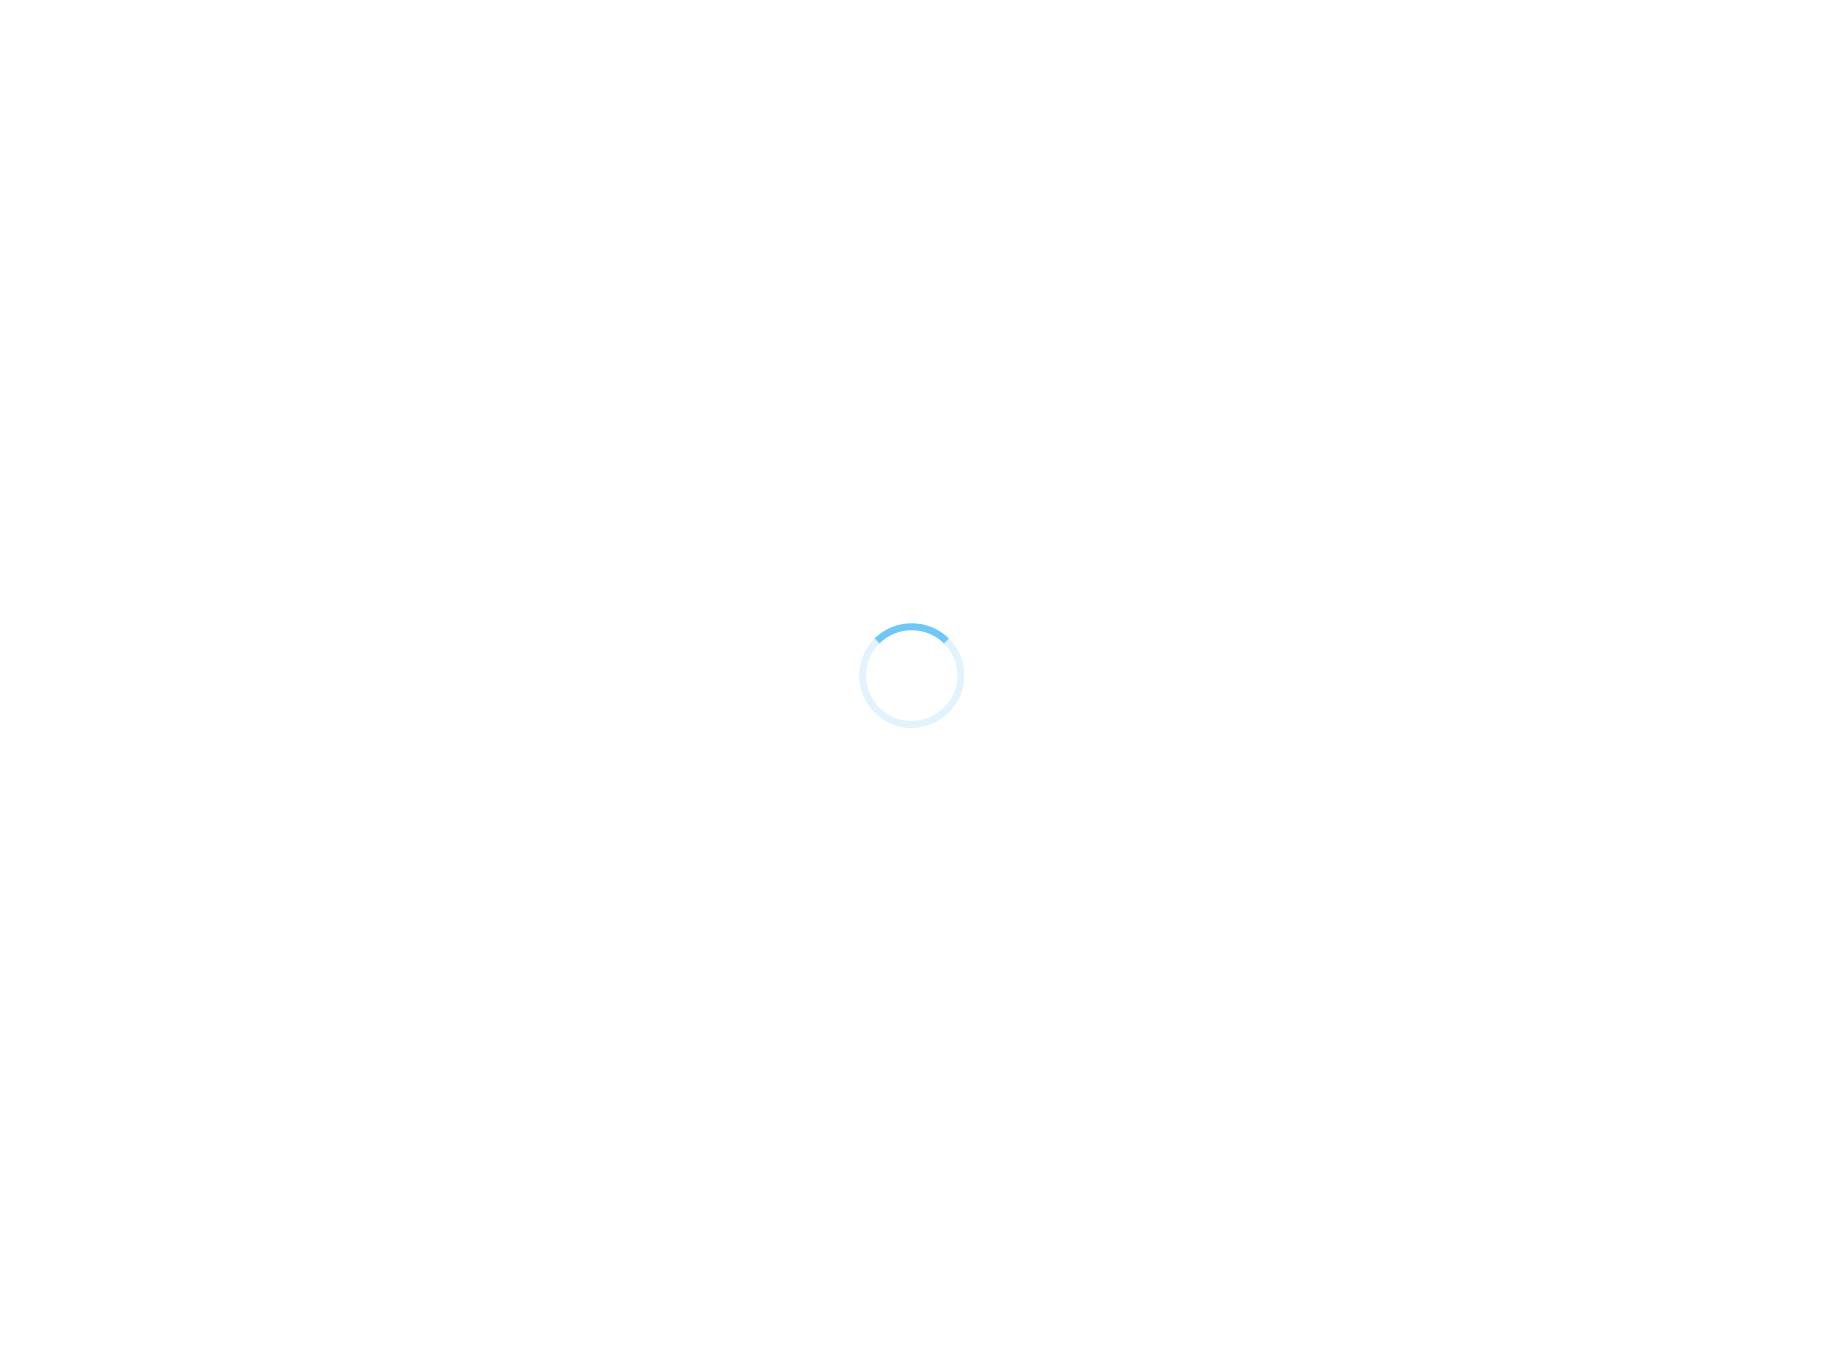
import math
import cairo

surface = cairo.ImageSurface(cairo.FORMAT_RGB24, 1821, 1349)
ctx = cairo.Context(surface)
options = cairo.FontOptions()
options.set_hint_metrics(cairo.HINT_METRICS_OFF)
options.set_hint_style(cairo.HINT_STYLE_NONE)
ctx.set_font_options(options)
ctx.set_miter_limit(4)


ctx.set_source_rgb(1, 1, 1)
ctx.paint()
ctx.new_path()
ctx.move_to(877, 641)
ctx.curve_to(896, 622, 927.5, 622, 946.5, 641)
ctx.set_source_rgb(0.431, 0.78, 0.961)
ctx.set_line_width(7)
ctx.stroke()
ctx.new_path()
ctx.move_to(946.5, 641)
ctx.curve_to(955.5, 650, 961, 662.5, 961, 675.5)
ctx.curve_to(960.5, 719, 907.5, 741, 877, 710)
ctx.curve_to(870.5, 703.5, 865.5, 694.5, 863.5, 685)
ctx.curve_to(860.5, 669, 865.5, 652.5, 877, 641)
ctx.set_source_rgba(0.431, 0.78, 0.961, 0.2)
ctx.stroke()
surface.write_to_png("page.png")
